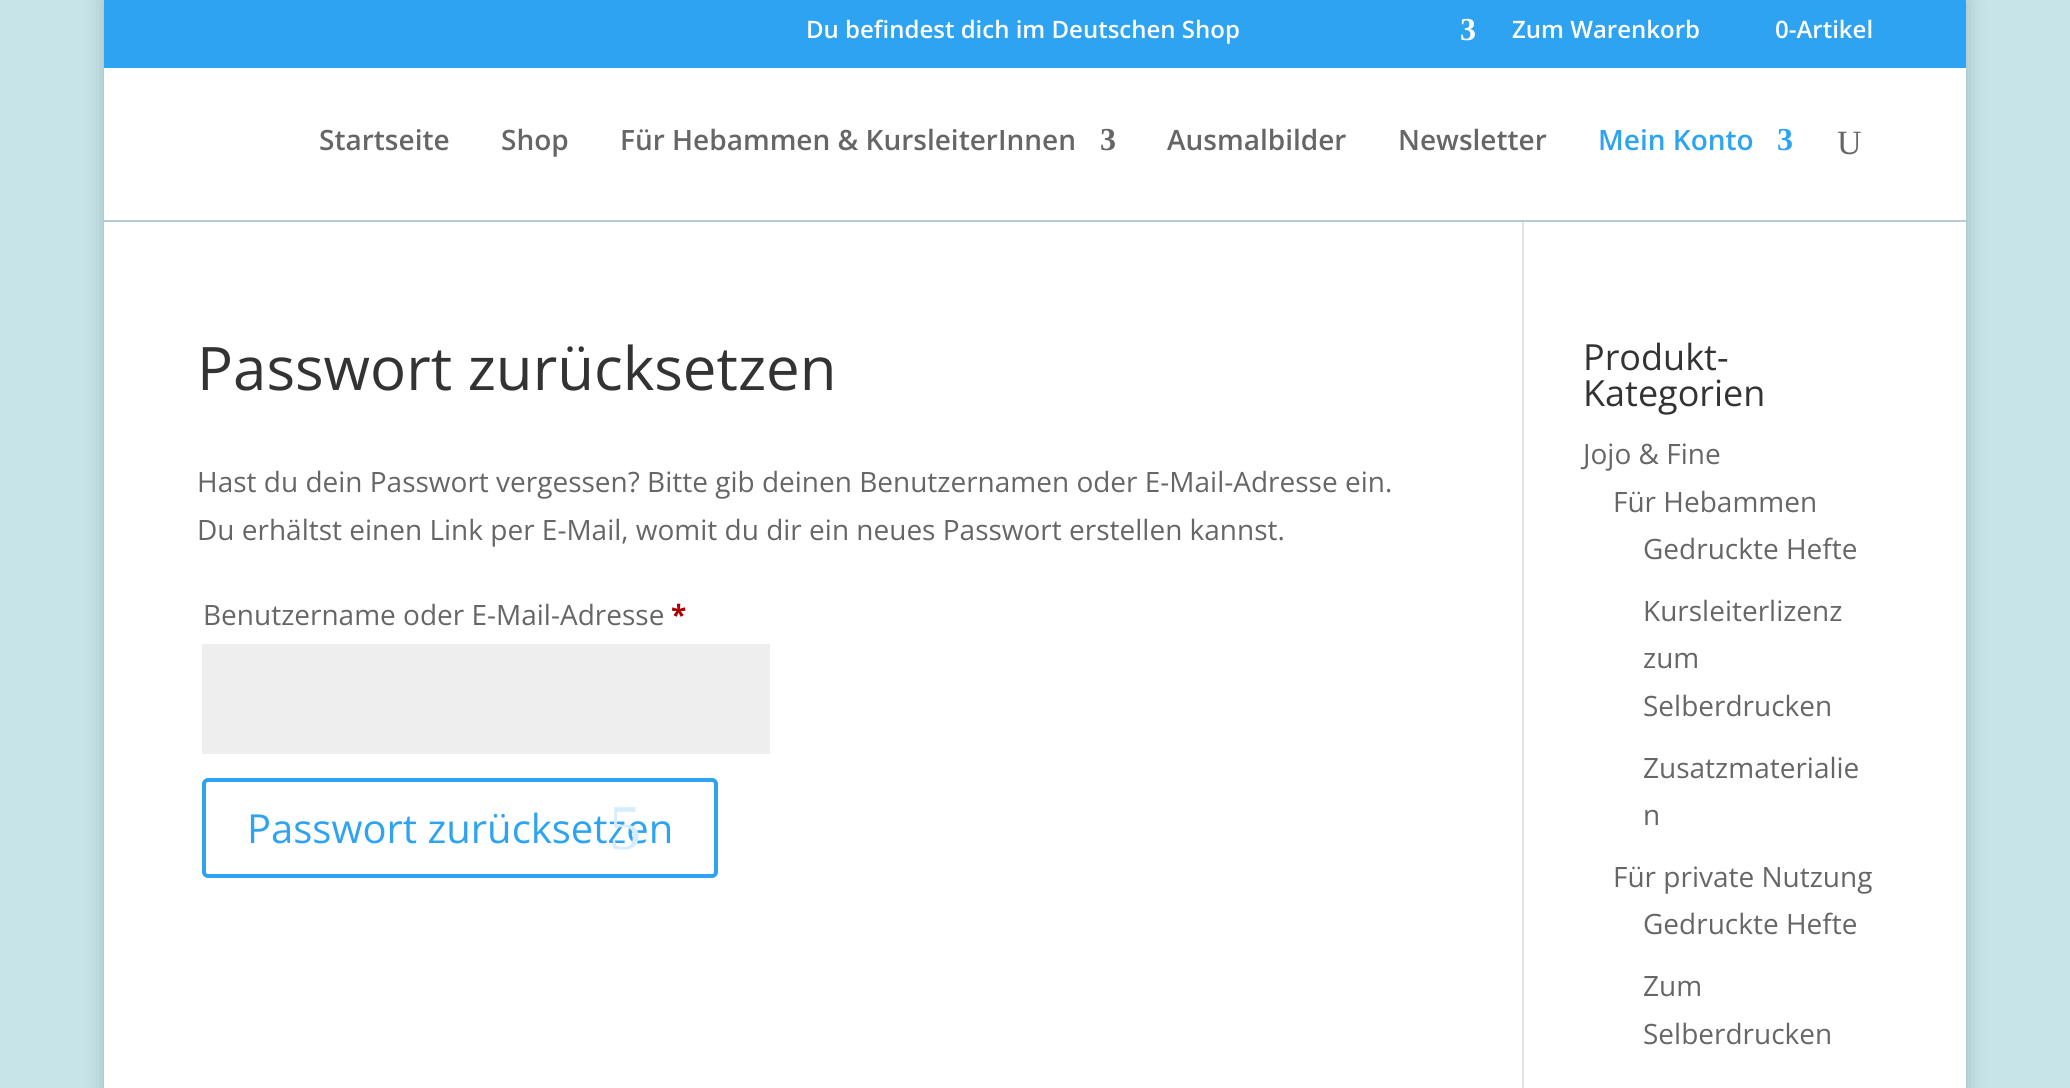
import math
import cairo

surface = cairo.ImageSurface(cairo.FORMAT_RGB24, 2070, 1088)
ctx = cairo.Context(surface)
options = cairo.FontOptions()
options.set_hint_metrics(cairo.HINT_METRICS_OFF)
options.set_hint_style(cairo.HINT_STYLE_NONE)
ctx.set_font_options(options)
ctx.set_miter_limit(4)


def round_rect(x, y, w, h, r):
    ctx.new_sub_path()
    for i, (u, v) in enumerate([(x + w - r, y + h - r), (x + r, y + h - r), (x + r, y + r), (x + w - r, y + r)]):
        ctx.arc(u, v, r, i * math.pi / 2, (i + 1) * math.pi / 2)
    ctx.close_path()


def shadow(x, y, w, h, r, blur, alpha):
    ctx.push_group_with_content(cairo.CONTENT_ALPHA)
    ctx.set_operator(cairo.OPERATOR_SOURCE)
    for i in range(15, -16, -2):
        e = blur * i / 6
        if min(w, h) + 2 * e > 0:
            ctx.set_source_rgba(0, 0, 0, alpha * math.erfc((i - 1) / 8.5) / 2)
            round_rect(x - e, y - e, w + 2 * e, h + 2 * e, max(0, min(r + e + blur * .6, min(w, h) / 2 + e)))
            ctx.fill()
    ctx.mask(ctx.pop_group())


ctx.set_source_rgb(0.78, 0.894, 0.91)
ctx.paint()
ctx.set_source_rgb(0, 0, 0)
shadow(104, 0, 1862, 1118, 0, 10, 0.2)
ctx.set_source_rgb(0.18, 0.639, 0.949)
ctx.rectangle(104, 0, 1862, 68)
ctx.fill()
ctx.select_font_face("Open Sans SemiBold")
ctx.set_font_size(24)
ctx.set_source_rgb(1, 1, 1)
ctx.move_to(806, 38)
ctx.show_text("Du befindest dich im Deutschen Shop")
ctx.select_font_face("Liberation Serif", cairo.FONT_SLANT_NORMAL, cairo.FONT_WEIGHT_BOLD)
ctx.set_font_size(32)
ctx.move_to(1460, 40)
ctx.show_text("3")
ctx.select_font_face("Open Sans SemiBold")
ctx.set_font_size(24)
ctx.move_to(1512, 38)
ctx.show_text("Zum Warenkorb")
ctx.move_to(1775, 38)
ctx.show_text("0-Artikel")
ctx.set_source_rgb(0.702, 0.804, 0.82)
ctx.rectangle(104, 220, 1862, 2)
ctx.fill()
ctx.set_source_rgb(1, 1, 1)
ctx.rectangle(104, 68, 1862, 152)
ctx.fill()
ctx.set_font_size(28)
ctx.set_source_rgb(0.4, 0.4, 0.4)
ctx.move_to(319, 150)
ctx.show_text("Startseite")
ctx.move_to(501, 150)
ctx.show_text("Shop")
ctx.move_to(620, 150)
ctx.show_text("Für Hebammen & KursleiterInnen")
ctx.select_font_face("Liberation Serif", cairo.FONT_SLANT_NORMAL, cairo.FONT_WEIGHT_BOLD)
ctx.set_font_size(32)
ctx.move_to(1100, 150)
ctx.show_text("3")
ctx.select_font_face("Open Sans SemiBold")
ctx.set_font_size(28)
ctx.move_to(1167, 150)
ctx.show_text("Ausmalbilder")
ctx.move_to(1398, 150)
ctx.show_text("Newsletter")
ctx.set_source_rgb(0.18, 0.639, 0.949)
ctx.move_to(1598, 150)
ctx.show_text("Mein Konto")
ctx.select_font_face("Liberation Serif", cairo.FONT_SLANT_NORMAL, cairo.FONT_WEIGHT_BOLD)
ctx.set_font_size(32)
ctx.move_to(1777, 150)
ctx.show_text("3")
ctx.select_font_face("Liberation Serif")
ctx.set_font_size(34)
ctx.set_source_rgb(0.4, 0.4, 0.4)
ctx.move_to(1837, 154)
ctx.show_text("U")
ctx.set_source_rgb(1, 1, 1)
ctx.rectangle(104, 222, 1862, 866)
ctx.fill()
ctx.set_source_rgb(0.886, 0.886, 0.886)
ctx.rectangle(1522, 222, 2, 866)
ctx.fill()
ctx.select_font_face("Open Sans")
ctx.set_font_size(60)
ctx.set_source_rgb(0.2, 0.2, 0.2)
ctx.move_to(197, 390)
ctx.show_text("Passwort zurücksetzen")
ctx.set_font_size(28)
ctx.set_source_rgb(0.4, 0.4, 0.4)
ctx.move_to(197, 492)
ctx.show_text("Hast du dein Passwort vergessen? Bitte gib deinen Benutzernamen oder E-Mail-Adresse ein.")
ctx.move_to(197, 540)
ctx.show_text("Du erhältst einen Link per E-Mail, womit du dir ein neues Passwort erstellen kannst.")
ctx.move_to(203, 625)
ctx.show_text("Benutzername oder E-Mail-Adresse")
ctx.select_font_face("Open Sans", cairo.FONT_SLANT_NORMAL, cairo.FONT_WEIGHT_BOLD)
ctx.set_source_rgb(0.667, 0, 0)
ctx.move_to(671, 625)
ctx.show_text("*")
ctx.set_source_rgb(0.933, 0.933, 0.933)
ctx.rectangle(202, 644, 568, 110)
ctx.fill()
round_rect(204, 780, 512, 96, 4)
ctx.set_source_rgb(0.18, 0.639, 0.949)
ctx.set_line_width(4)
ctx.stroke()
ctx.select_font_face("Open Sans")
ctx.set_font_size(40)
ctx.move_to(247, 843)
ctx.show_text("Passwort zurücksetzen")
ctx.select_font_face("Liberation Serif")
ctx.set_font_size(64)
ctx.set_source_rgb(0.843, 0.929, 0.988)
ctx.move_to(609, 849)
ctx.show_text("5")
ctx.select_font_face("Open Sans")
ctx.set_font_size(36)
ctx.set_source_rgb(0.2, 0.2, 0.2)
ctx.move_to(1583, 370)
ctx.show_text("Produkt-")
ctx.move_to(1583, 406)
ctx.show_text("Kategorien")
ctx.set_font_size(28)
ctx.set_source_rgb(0.4, 0.4, 0.4)
ctx.move_to(1583, 464)
ctx.show_text("Jojo & Fine")
ctx.move_to(1613, 512)
ctx.show_text("Für Hebammen")
ctx.move_to(1643, 559)
ctx.show_text("Gedruckte Hefte")
ctx.move_to(1643, 621)
ctx.show_text("Kursleiterlizenz")
ctx.move_to(1643, 668)
ctx.show_text("zum")
ctx.move_to(1643, 716)
ctx.show_text("Selberdrucken")
ctx.move_to(1643, 778)
ctx.show_text("Zusatzmaterialie")
ctx.move_to(1643, 825)
ctx.show_text("n")
ctx.move_to(1613, 887)
ctx.show_text("Für private Nutzung")
ctx.move_to(1643, 934)
ctx.show_text("Gedruckte Hefte")
ctx.move_to(1643, 996)
ctx.show_text("Zum")
ctx.move_to(1643, 1044)
ctx.show_text("Selberdrucken")
surface.write_to_png("page.png")
